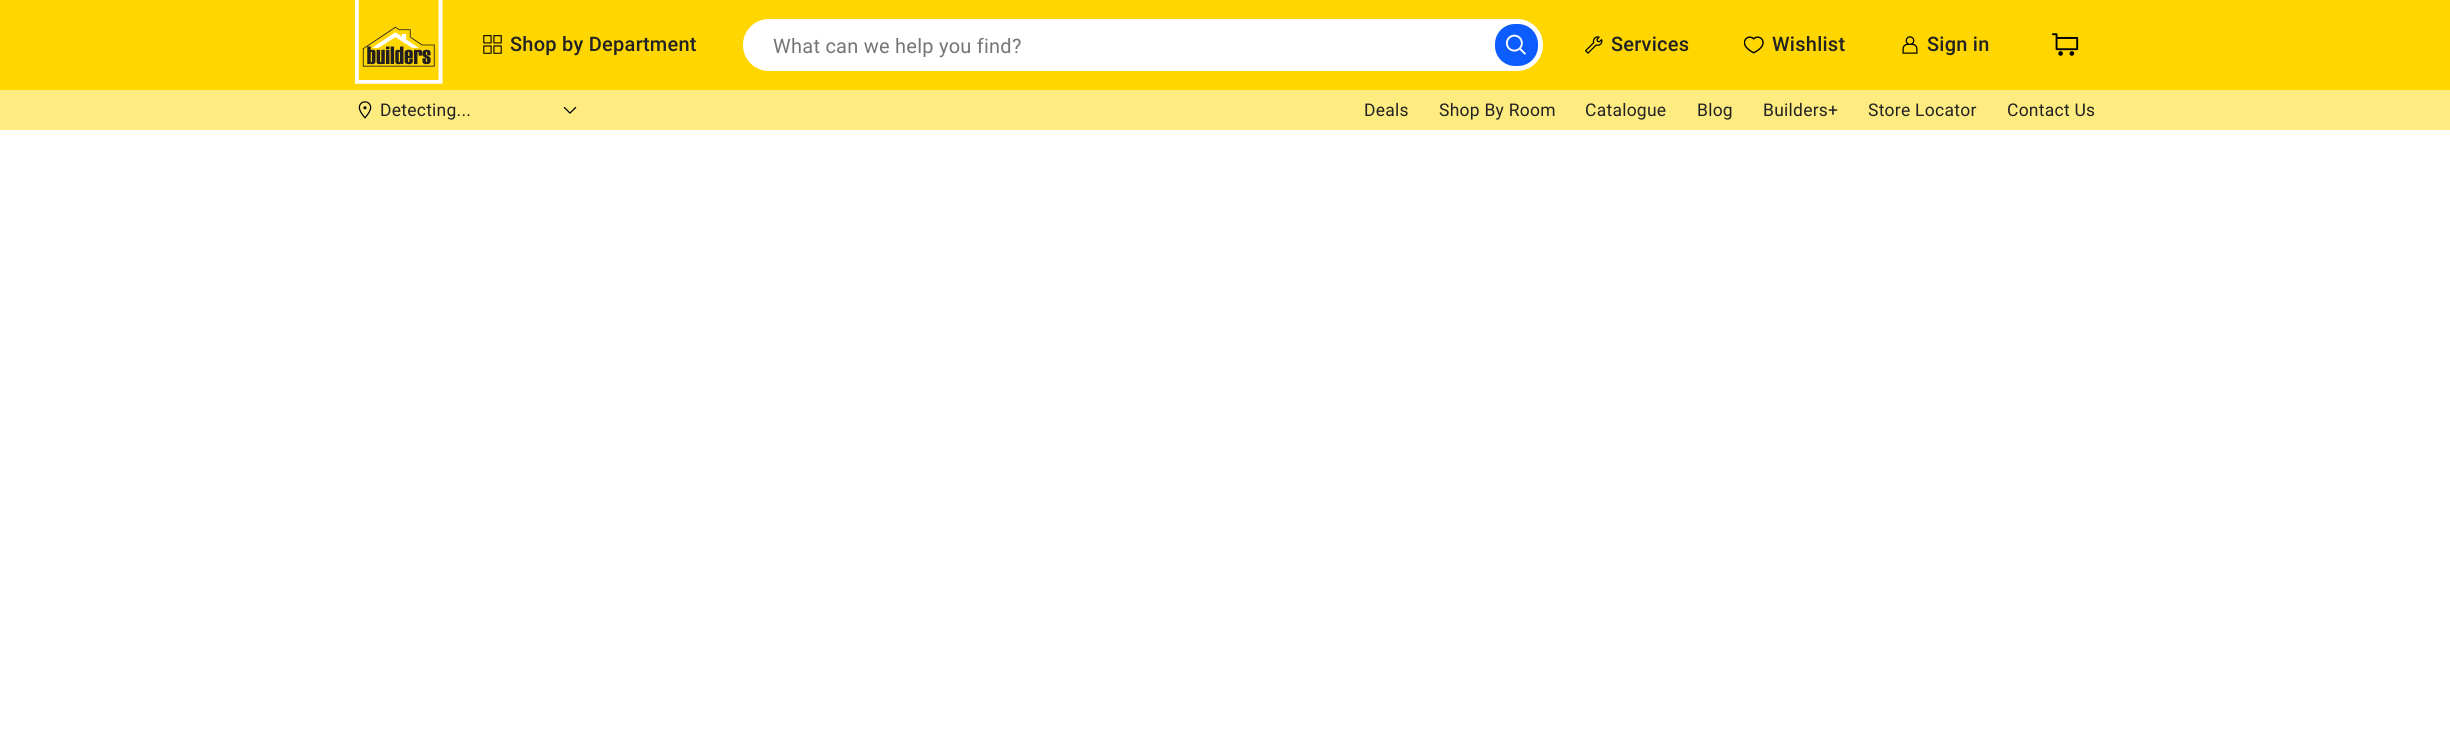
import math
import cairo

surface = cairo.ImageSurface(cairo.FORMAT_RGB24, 2450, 735)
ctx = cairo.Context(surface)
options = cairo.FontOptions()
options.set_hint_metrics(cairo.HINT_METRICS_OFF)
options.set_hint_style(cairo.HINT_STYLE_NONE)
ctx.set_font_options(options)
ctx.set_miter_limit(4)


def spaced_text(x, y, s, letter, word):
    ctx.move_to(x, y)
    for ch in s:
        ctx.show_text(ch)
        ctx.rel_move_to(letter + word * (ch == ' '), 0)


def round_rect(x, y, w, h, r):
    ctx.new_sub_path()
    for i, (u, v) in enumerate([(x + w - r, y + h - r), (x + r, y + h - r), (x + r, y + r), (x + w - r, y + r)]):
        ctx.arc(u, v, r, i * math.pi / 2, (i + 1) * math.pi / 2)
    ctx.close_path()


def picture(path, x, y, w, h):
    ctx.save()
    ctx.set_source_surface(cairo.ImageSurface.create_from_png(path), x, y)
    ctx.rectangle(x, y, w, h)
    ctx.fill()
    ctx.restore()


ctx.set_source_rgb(1, 1, 1)
ctx.paint()
ctx.set_source_rgb(1, 0.839, 0)
ctx.rectangle(0, 0, 2450, 90)
ctx.fill()
picture("img1.png", 355, 0, 88, 84)
picture("img2.png", 483, 35, 19, 19)
ctx.select_font_face("Roboto Medium")
ctx.set_font_size(20)
ctx.set_source_rgb(0.133, 0.133, 0.137)
spaced_text(510, 51, "Shop by Department", 0.25, 0)
ctx.set_source_rgb(1, 1, 1)
ctx.new_path()
ctx.move_to(769, 19)
ctx.line_to(1490, 19)
ctx.line_to(1490, 71)
ctx.line_to(769, 71)
ctx.curve_to(754.5, 71, 743, 59.5, 743, 45)
ctx.curve_to(743, 30.5, 754.5, 19, 769, 19)
ctx.close_path()
ctx.fill()
ctx.select_font_face("Roboto")
ctx.set_source_rgb(0.459, 0.459, 0.459)
spaced_text(773, 53, "What can we help you find?", 0.25, 0)
ctx.set_source_rgb(1, 1, 1)
ctx.new_path()
ctx.move_to(1490, 19)
ctx.line_to(1517, 19)
ctx.curve_to(1531.5, 19, 1543, 30.5, 1543, 45)
ctx.curve_to(1543, 59.5, 1531.5, 71, 1517, 71)
ctx.line_to(1490, 71)
ctx.close_path()
ctx.fill()
ctx.set_source_rgb(0.051, 0.365, 0.996)
round_rect(1495, 24, 43, 42, 20)
ctx.fill()
picture("img3.png", 1505, 34, 21, 21)
picture("img4.png", 1585, 36, 18, 18)
ctx.select_font_face("Roboto Medium")
ctx.set_source_rgb(0.133, 0.133, 0.137)
spaced_text(1611, 51, "Services", 0.25, 0)
picture("img5.png", 1744, 36, 20, 18)
spaced_text(1772, 51, "Wishlist", 0.25, 0)
picture("img6.png", 1902, 36, 16, 18)
spaced_text(1927, 51, "Sign in", 0.25, 0)
picture("img7.png", 2051, 33, 28, 23)
ctx.set_source_rgb(1, 0.922, 0.502)
ctx.rectangle(0, 90, 2450, 40)
ctx.fill()
picture("img8.png", 358, 101, 14, 18)
ctx.select_font_face("Roboto")
ctx.set_font_size(17.5)
ctx.set_source_rgb(0.133, 0.133, 0.137)
spaced_text(380, 116, "Detecting...", 0.25, 0)
picture("img9.png", 563, 106, 14, 8)
spaced_text(1364, 116, "Deals", 0.25, 0)
spaced_text(1439, 116, "Shop By Room", 0.25, 0)
spaced_text(1585, 116, "Catalogue", 0.25, 0)
spaced_text(1697, 116, "Blog", 0.25, 0)
spaced_text(1763, 116, "Builders+", 0.25, 0)
spaced_text(1868, 116, "Store Locator", 0.25, 0)
spaced_text(2007, 116, "Contact Us", 0.25, 0)
surface.write_to_png("page.png")
